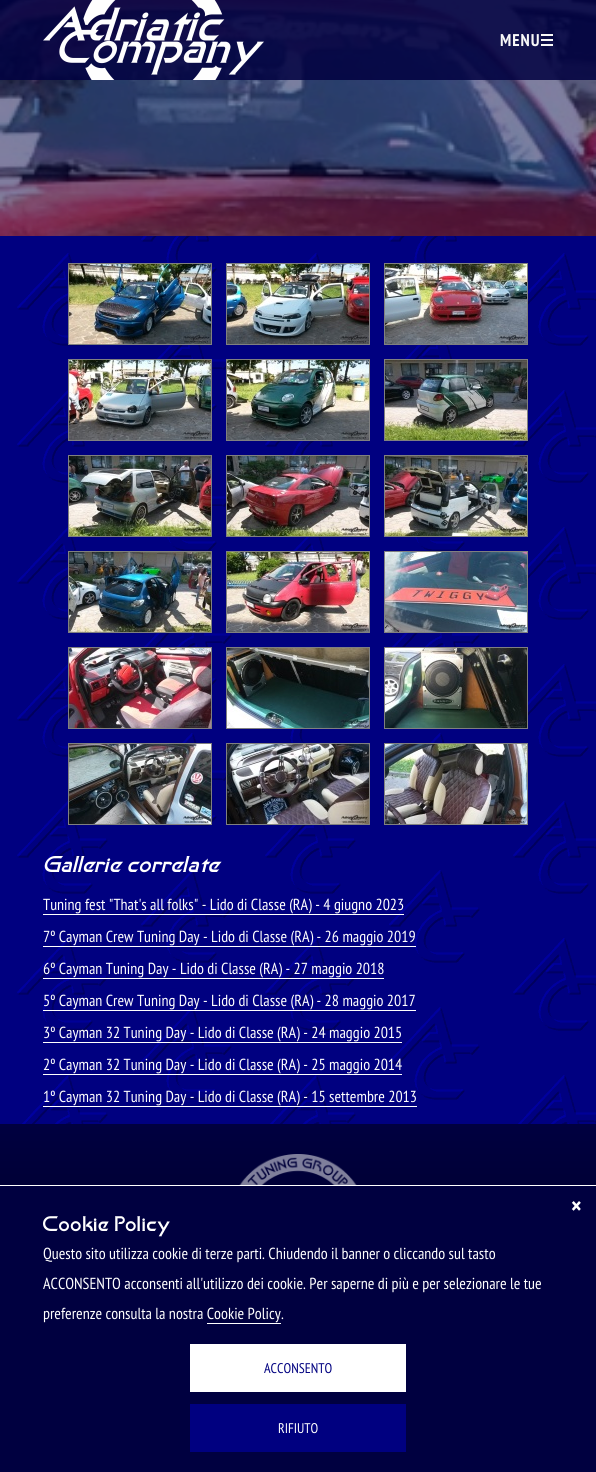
import math
import cairo

surface = cairo.ImageSurface(cairo.FORMAT_RGB24, 596, 1472)
ctx = cairo.Context(surface)
options = cairo.FontOptions()
options.set_hint_metrics(cairo.HINT_METRICS_OFF)
options.set_hint_style(cairo.HINT_STYLE_NONE)
ctx.set_font_options(options)
ctx.set_miter_limit(4)


def spaced_text(x, y, s, letter, word):
    ctx.move_to(x, y)
    for ch in s:
        ctx.show_text(ch)
        ctx.rel_move_to(letter + word * (ch == ' '), 0)


def picture(path, x, y, w, h):
    ctx.save()
    ctx.set_source_surface(cairo.ImageSurface.create_from_png(path), x, y)
    ctx.rectangle(x, y, w, h)
    ctx.fill()
    ctx.restore()


ctx.set_source_rgb(1, 1, 1)
ctx.paint()
picture("img1.png", 0, 0, 596, 236)
ctx.set_source_rgba(0, 0, 0.251, 0.85)
ctx.rectangle(0, 0, 596, 80)
ctx.fill()
picture("img2.png", 43, 0, 221, 80)
ctx.select_font_face("PT Sans Narrow", cairo.FONT_SLANT_NORMAL, cairo.FONT_WEIGHT_BOLD)
ctx.set_font_size(17)
ctx.set_source_rgb(0.969, 0.969, 0.969)
spaced_text(500, 46, "MENU", 1, 0)
ctx.rectangle(541, 34, 12, 2)
ctx.fill()
ctx.rectangle(541, 39, 12, 2)
ctx.fill()
ctx.rectangle(541, 44, 12, 2)
ctx.fill()
ctx.set_source_rgb(0, 0, 0.502)
ctx.rectangle(0, 236, 17, 888)
ctx.fill()
picture("img3.png", 17, 236, 579, 888)
ctx.rectangle(68.5, 263.5, 143, 81)
ctx.set_source_rgb(0.502, 0.502, 0.502)
ctx.set_line_width(1)
ctx.stroke()
picture("img4.png", 69, 264, 142, 80)
ctx.rectangle(226.5, 263.5, 143, 81)
ctx.stroke()
picture("img5.png", 227, 264, 142, 80)
ctx.rectangle(384.5, 263.5, 143, 81)
ctx.stroke()
picture("img6.png", 385, 264, 142, 80)
ctx.rectangle(68.5, 359.5, 143, 81)
ctx.stroke()
picture("img7.png", 69, 360, 142, 80)
ctx.rectangle(226.5, 359.5, 143, 81)
ctx.stroke()
picture("img8.png", 227, 360, 142, 80)
ctx.rectangle(384.5, 359.5, 143, 81)
ctx.stroke()
picture("img9.png", 385, 360, 142, 80)
ctx.rectangle(68.5, 455.5, 143, 81)
ctx.stroke()
picture("img10.png", 69, 456, 142, 80)
ctx.rectangle(226.5, 455.5, 143, 81)
ctx.stroke()
picture("img11.png", 227, 456, 142, 80)
ctx.rectangle(384.5, 455.5, 143, 81)
ctx.stroke()
picture("img12.png", 385, 456, 142, 80)
ctx.rectangle(68.5, 551.5, 143, 81)
ctx.stroke()
picture("img13.png", 69, 552, 142, 80)
ctx.rectangle(226.5, 551.5, 143, 81)
ctx.stroke()
picture("img14.png", 227, 552, 142, 80)
ctx.rectangle(384.5, 551.5, 143, 81)
ctx.stroke()
picture("img15.png", 385, 552, 142, 80)
ctx.rectangle(68.5, 647.5, 143, 81)
ctx.stroke()
picture("img16.png", 69, 648, 142, 80)
ctx.rectangle(226.5, 647.5, 143, 81)
ctx.stroke()
picture("img17.png", 227, 648, 142, 80)
ctx.rectangle(384.5, 647.5, 143, 81)
ctx.stroke()
picture("img18.png", 385, 648, 142, 80)
ctx.rectangle(68.5, 743.5, 143, 81)
ctx.stroke()
picture("img19.png", 69, 744, 142, 80)
ctx.rectangle(226.5, 743.5, 143, 81)
ctx.stroke()
picture("img20.png", 227, 744, 142, 80)
ctx.rectangle(384.5, 743.5, 143, 81)
ctx.stroke()
picture("img21.png", 385, 744, 142, 80)
ctx.select_font_face("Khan", cairo.FONT_SLANT_ITALIC)
ctx.set_font_size(20)
ctx.set_source_rgb(1, 1, 1)
ctx.move_to(43, 872)
ctx.show_text("Gallerie correlate")
ctx.select_font_face("PT Sans Narrow")
ctx.set_font_size(16)
ctx.move_to(43, 910)
ctx.show_text("Tuning fest \"That's all folks\" - Lido di Classe (RA) - 4 giugno 2023")
ctx.rectangle(43, 914, 361, 1)
ctx.fill()
ctx.move_to(43, 942)
ctx.show_text("7º Cayman Crew Tuning Day - Lido di Classe (RA) - 26 maggio 2019")
ctx.rectangle(43, 946, 373, 1)
ctx.fill()
ctx.move_to(43, 974)
ctx.show_text("6º Cayman Tuning Day - Lido di Classe (RA) - 27 maggio 2018")
ctx.rectangle(43, 978, 341, 1)
ctx.fill()
ctx.move_to(43, 1006)
ctx.show_text("5º Cayman Crew Tuning Day - Lido di Classe (RA) - 28 maggio 2017")
ctx.rectangle(43, 1010, 373, 1)
ctx.fill()
ctx.move_to(43, 1038)
ctx.show_text("3º Cayman 32 Tuning Day - Lido di Classe (RA) - 24 maggio 2015")
ctx.rectangle(43, 1042, 359, 1)
ctx.fill()
ctx.move_to(43, 1070)
ctx.show_text("2º Cayman 32 Tuning Day - Lido di Classe (RA) - 25 maggio 2014")
ctx.rectangle(43, 1074, 359, 1)
ctx.fill()
ctx.move_to(43, 1102)
ctx.show_text("1º Cayman 32 Tuning Day - Lido di Classe (RA) - 15 settembre 2013")
ctx.rectangle(43, 1106, 374, 1)
ctx.fill()
gradient = cairo.LinearGradient(298, 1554, 298, 1124)
gradient.add_color_stop_rgba(0, 0, 0, 0, 1)
gradient.add_color_stop_rgba(1, 0, 0, 0.251, 1)
ctx.set_source(gradient)
ctx.rectangle(0, 1124, 596, 61)
ctx.fill()
picture("img22.png", 239, 1154, 118, 31)
ctx.set_source_rgb(0, 0, 0.251)
ctx.rectangle(0, 1186, 596, 286)
ctx.fill()
ctx.select_font_face("PT Sans Narrow", cairo.FONT_SLANT_NORMAL, cairo.FONT_WEIGHT_BOLD)
ctx.set_font_size(24)
ctx.set_source_rgb(1, 1, 1)
ctx.move_to(571, 1214)
ctx.show_text("×")
ctx.select_font_face("Khan")
ctx.set_font_size(18.5)
ctx.move_to(43, 1231)
ctx.show_text("Cookie Policy")
ctx.select_font_face("PT Sans Narrow")
ctx.set_font_size(16)
ctx.move_to(43, 1259)
ctx.show_text("Questo sito utilizza cookie di terze parti. Chiudendo il banner o cliccando sul tasto")
ctx.move_to(43, 1289)
ctx.show_text("ACCONSENTO acconsenti all'utilizzo dei cookie. Per saperne di più e per selezionare le tue")
ctx.move_to(43, 1319)
ctx.show_text("preferenze consulta la nostra Cookie Policy")
ctx.move_to(281, 1319)
ctx.show_text(".")
ctx.rectangle(207, 1323, 74, 1)
ctx.fill()
ctx.rectangle(190, 1344, 216, 48)
ctx.fill()
ctx.set_font_size(14)
ctx.set_source_rgb(0, 0, 0.502)
ctx.move_to(264, 1373)
ctx.show_text("ACCONSENTO")
ctx.rectangle(190, 1404, 216, 48)
ctx.fill()
ctx.set_source_rgb(1, 1, 1)
ctx.move_to(278, 1433)
ctx.show_text("RIFIUTO")
surface.write_to_png("page.png")
